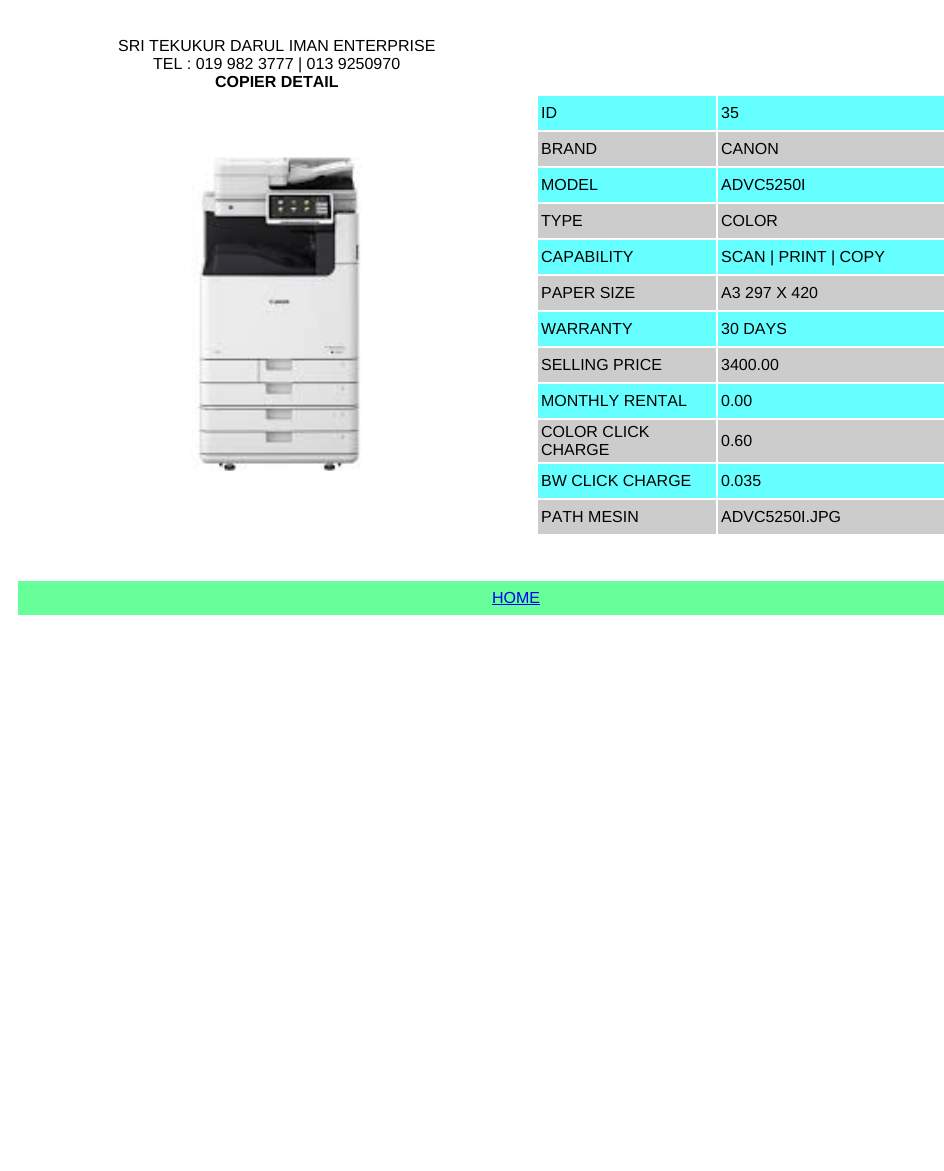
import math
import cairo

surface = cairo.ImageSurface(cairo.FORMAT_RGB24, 944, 1171)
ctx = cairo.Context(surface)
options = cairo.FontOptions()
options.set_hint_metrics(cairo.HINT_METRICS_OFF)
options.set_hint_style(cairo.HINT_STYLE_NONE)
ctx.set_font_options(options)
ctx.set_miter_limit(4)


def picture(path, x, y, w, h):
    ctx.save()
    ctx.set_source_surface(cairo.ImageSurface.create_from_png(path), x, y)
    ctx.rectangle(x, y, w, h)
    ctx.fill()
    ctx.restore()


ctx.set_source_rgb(1, 1, 1)
ctx.paint()
ctx.select_font_face("Liberation Sans")
ctx.set_font_size(16)
ctx.set_source_rgb(0, 0, 0)
ctx.move_to(118, 51)
ctx.show_text("SRI TEKUKUR DARUL IMAN ENTERPRISE")
ctx.move_to(153, 69)
ctx.show_text("TEL : 019 982 3777 | 013 9250970")
ctx.select_font_face("Liberation Sans", cairo.FONT_SLANT_NORMAL, cairo.FONT_WEIGHT_BOLD)
ctx.move_to(215, 87)
ctx.show_text("COPIER DETAIL")
ctx.set_source_rgb(0.4, 1, 1)
ctx.rectangle(538, 96, 178, 34)
ctx.fill()
ctx.select_font_face("Liberation Sans")
ctx.set_source_rgb(0, 0, 0)
ctx.move_to(541, 118)
ctx.show_text("ID")
ctx.set_source_rgb(0.4, 1, 1)
ctx.rectangle(718, 96, 226, 34)
ctx.fill()
ctx.set_source_rgb(0, 0, 0)
ctx.move_to(721, 118)
ctx.show_text("35")
picture("img1.png", 191, 157, 171, 314)
ctx.set_source_rgb(0.8, 0.8, 0.8)
ctx.rectangle(538, 132, 178, 34)
ctx.fill()
ctx.set_source_rgb(0, 0, 0)
ctx.move_to(541, 154)
ctx.show_text("BRAND")
ctx.set_source_rgb(0.8, 0.8, 0.8)
ctx.rectangle(718, 132, 226, 34)
ctx.fill()
ctx.set_source_rgb(0, 0, 0)
ctx.move_to(721, 154)
ctx.show_text("CANON")
ctx.set_source_rgb(0.4, 1, 1)
ctx.rectangle(538, 168, 178, 34)
ctx.fill()
ctx.set_source_rgb(0, 0, 0)
ctx.move_to(541, 190)
ctx.show_text("MODEL")
ctx.set_source_rgb(0.4, 1, 1)
ctx.rectangle(718, 168, 226, 34)
ctx.fill()
ctx.set_source_rgb(0, 0, 0)
ctx.move_to(721, 190)
ctx.show_text("ADVC5250I")
ctx.set_source_rgb(0.8, 0.8, 0.8)
ctx.rectangle(538, 204, 178, 34)
ctx.fill()
ctx.set_source_rgb(0, 0, 0)
ctx.move_to(541, 226)
ctx.show_text("TYPE")
ctx.set_source_rgb(0.8, 0.8, 0.8)
ctx.rectangle(718, 204, 226, 34)
ctx.fill()
ctx.set_source_rgb(0, 0, 0)
ctx.move_to(721, 226)
ctx.show_text("COLOR")
ctx.set_source_rgb(0.4, 1, 1)
ctx.rectangle(538, 240, 178, 34)
ctx.fill()
ctx.set_source_rgb(0, 0, 0)
ctx.move_to(541, 262)
ctx.show_text("CAPABILITY")
ctx.set_source_rgb(0.4, 1, 1)
ctx.rectangle(718, 240, 226, 34)
ctx.fill()
ctx.set_source_rgb(0, 0, 0)
ctx.move_to(721, 262)
ctx.show_text("SCAN | PRINT | COPY")
ctx.set_source_rgb(0.8, 0.8, 0.8)
ctx.rectangle(538, 276, 178, 34)
ctx.fill()
ctx.set_source_rgb(0, 0, 0)
ctx.move_to(541, 298)
ctx.show_text("PAPER SIZE")
ctx.set_source_rgb(0.8, 0.8, 0.8)
ctx.rectangle(718, 276, 226, 34)
ctx.fill()
ctx.set_source_rgb(0, 0, 0)
ctx.move_to(721, 298)
ctx.show_text("A3 297 X 420")
ctx.set_source_rgb(0.4, 1, 1)
ctx.rectangle(538, 312, 178, 34)
ctx.fill()
ctx.set_source_rgb(0, 0, 0)
ctx.move_to(541, 334)
ctx.show_text("WARRANTY")
ctx.set_source_rgb(0.4, 1, 1)
ctx.rectangle(718, 312, 226, 34)
ctx.fill()
ctx.set_source_rgb(0, 0, 0)
ctx.move_to(721, 334)
ctx.show_text("30 DAYS")
ctx.set_source_rgb(0.8, 0.8, 0.8)
ctx.rectangle(538, 348, 178, 34)
ctx.fill()
ctx.set_source_rgb(0, 0, 0)
ctx.move_to(541, 370)
ctx.show_text("SELLING PRICE")
ctx.set_source_rgb(0.8, 0.8, 0.8)
ctx.rectangle(718, 348, 226, 34)
ctx.fill()
ctx.set_source_rgb(0, 0, 0)
ctx.move_to(721, 370)
ctx.show_text("3400.00")
ctx.set_source_rgb(0.4, 1, 1)
ctx.rectangle(538, 384, 178, 34)
ctx.fill()
ctx.set_source_rgb(0, 0, 0)
ctx.move_to(541, 406)
ctx.show_text("MONTHLY RENTAL")
ctx.set_source_rgb(0.4, 1, 1)
ctx.rectangle(718, 384, 226, 34)
ctx.fill()
ctx.set_source_rgb(0, 0, 0)
ctx.move_to(721, 406)
ctx.show_text("0.00")
ctx.set_source_rgb(0.8, 0.8, 0.8)
ctx.rectangle(538, 420, 178, 42)
ctx.fill()
ctx.set_source_rgb(0, 0, 0)
ctx.move_to(541, 437)
ctx.show_text("COLOR CLICK")
ctx.move_to(541, 455)
ctx.show_text("CHARGE")
ctx.set_source_rgb(0.8, 0.8, 0.8)
ctx.rectangle(718, 420, 226, 42)
ctx.fill()
ctx.set_source_rgb(0, 0, 0)
ctx.move_to(721, 446)
ctx.show_text("0.60")
ctx.set_source_rgb(0.4, 1, 1)
ctx.rectangle(538, 464, 178, 34)
ctx.fill()
ctx.set_source_rgb(0, 0, 0)
ctx.move_to(541, 486)
ctx.show_text("BW CLICK CHARGE")
ctx.set_source_rgb(0.4, 1, 1)
ctx.rectangle(718, 464, 226, 34)
ctx.fill()
ctx.set_source_rgb(0, 0, 0)
ctx.move_to(721, 486)
ctx.show_text("0.035")
ctx.set_source_rgb(0.8, 0.8, 0.8)
ctx.rectangle(538, 500, 178, 34)
ctx.fill()
ctx.set_source_rgb(0, 0, 0)
ctx.move_to(541, 522)
ctx.show_text("PATH MESIN")
ctx.set_source_rgb(0.8, 0.8, 0.8)
ctx.rectangle(718, 500, 226, 34)
ctx.fill()
ctx.set_source_rgb(0, 0, 0)
ctx.move_to(721, 522)
ctx.show_text("ADVC5250I.JPG")
ctx.set_source_rgb(0.4, 1, 0.6)
ctx.rectangle(18, 581, 926, 34)
ctx.fill()
ctx.set_source_rgb(0, 0, 0.933)
ctx.move_to(492, 603)
ctx.show_text("HOME")
ctx.rectangle(492, 604, 48, 1)
ctx.fill()
surface.write_to_png("page.png")
